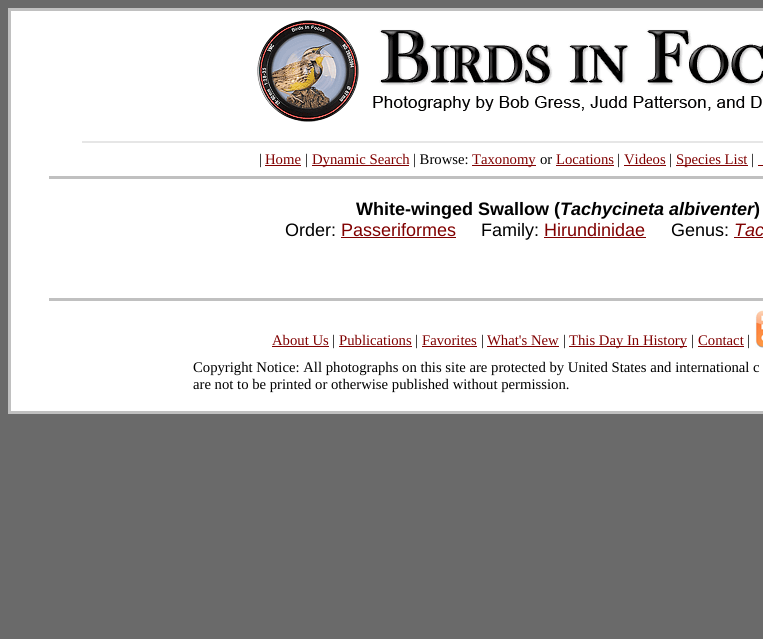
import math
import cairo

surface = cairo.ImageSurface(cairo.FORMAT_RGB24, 763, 639)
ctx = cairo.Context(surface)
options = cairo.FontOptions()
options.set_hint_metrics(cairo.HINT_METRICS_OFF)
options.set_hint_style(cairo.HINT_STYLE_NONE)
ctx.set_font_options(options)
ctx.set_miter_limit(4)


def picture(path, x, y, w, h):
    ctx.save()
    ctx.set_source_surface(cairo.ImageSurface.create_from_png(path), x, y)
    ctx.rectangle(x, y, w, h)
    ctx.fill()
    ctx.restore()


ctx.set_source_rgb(0.416, 0.416, 0.416)
ctx.paint()
ctx.set_source_rgb(1, 1, 1)
ctx.rectangle(11, 11, 752, 400)
ctx.fill()
ctx.set_source_rgb(0.753, 0.753, 0.753)
ctx.rectangle(8, 8, 755, 3)
ctx.fill()
ctx.rectangle(8, 411, 755, 3)
ctx.fill()
ctx.rectangle(8, 8, 3, 406)
ctx.fill()
picture("img1.png", 257, 20, 506, 102)
ctx.set_source_rgb(0.902, 0.902, 0.902)
ctx.rectangle(82, 141, 681, 2)
ctx.fill()
ctx.select_font_face("Liberation Serif")
ctx.set_font_size(14.7)
ctx.set_source_rgb(0, 0, 0)
ctx.move_to(259, 164)
ctx.show_text("|")
ctx.set_source_rgb(0.502, 0, 0)
ctx.move_to(265, 164)
ctx.show_text("Home")
ctx.rectangle(265, 165, 36, 1)
ctx.fill()
ctx.set_source_rgb(0, 0, 0)
ctx.move_to(305, 164)
ctx.show_text("|")
ctx.set_source_rgb(0.502, 0, 0)
ctx.rectangle(312, 165, 97, 1)
ctx.fill()
ctx.move_to(312, 164)
ctx.show_text("Dynamic Search")
ctx.set_source_rgb(0, 0, 0)
ctx.move_to(413, 164)
ctx.show_text("| Browse:")
ctx.set_source_rgb(0.502, 0, 0)
ctx.rectangle(472, 165, 64, 1)
ctx.fill()
ctx.move_to(472, 164)
ctx.show_text("Taxonomy")
ctx.set_source_rgb(0, 0, 0)
ctx.move_to(540, 164)
ctx.show_text("or")
ctx.set_source_rgb(0.502, 0, 0)
ctx.move_to(556, 164)
ctx.show_text("Locations")
ctx.rectangle(556, 165, 58, 1)
ctx.fill()
ctx.set_source_rgb(0, 0, 0)
ctx.move_to(617, 164)
ctx.show_text("|")
ctx.set_source_rgb(0.502, 0, 0)
ctx.move_to(624, 164)
ctx.show_text("Videos")
ctx.rectangle(624, 165, 42, 1)
ctx.fill()
ctx.set_source_rgb(0, 0, 0)
ctx.move_to(669, 164)
ctx.show_text("|")
ctx.set_source_rgb(0.502, 0, 0)
ctx.rectangle(676, 165, 72, 1)
ctx.fill()
ctx.move_to(676, 164)
ctx.show_text("Species List")
ctx.set_source_rgb(0, 0, 0)
ctx.move_to(751, 164)
ctx.show_text("|")
ctx.set_source_rgb(0.502, 0, 0)
ctx.rectangle(758, 165, 5, 1)
ctx.fill()
ctx.set_source_rgb(0.753, 0.753, 0.753)
ctx.rectangle(49, 176, 714, 3)
ctx.fill()
ctx.select_font_face("Liberation Sans", cairo.FONT_SLANT_NORMAL, cairo.FONT_WEIGHT_BOLD)
ctx.set_font_size(18)
ctx.set_source_rgb(0, 0, 0)
ctx.move_to(356, 215)
ctx.show_text("White-winged Swallow (")
ctx.select_font_face("Liberation Sans", cairo.FONT_SLANT_ITALIC, cairo.FONT_WEIGHT_BOLD)
ctx.move_to(560, 215)
ctx.show_text("Tachycineta albiventer")
ctx.select_font_face("Liberation Sans", cairo.FONT_SLANT_NORMAL, cairo.FONT_WEIGHT_BOLD)
ctx.move_to(754, 215)
ctx.show_text(")")
ctx.select_font_face("Liberation Sans")
ctx.move_to(285, 236)
ctx.show_text("Order:")
ctx.set_source_rgb(0.502, 0, 0)
ctx.move_to(341, 236)
ctx.show_text("Passeriformes")
ctx.rectangle(341, 237, 115, 1)
ctx.fill()
ctx.set_source_rgb(0, 0, 0)
ctx.move_to(481, 236)
ctx.show_text("Family:")
ctx.set_source_rgb(0.502, 0, 0)
ctx.move_to(544, 236)
ctx.show_text("Hirundinidae")
ctx.rectangle(544, 237, 102, 1)
ctx.fill()
ctx.set_source_rgb(0, 0, 0)
ctx.move_to(671, 236)
ctx.show_text("Genus:")
ctx.select_font_face("Liberation Sans", cairo.FONT_SLANT_ITALIC)
ctx.set_source_rgb(0.502, 0, 0)
ctx.move_to(734, 236)
ctx.show_text("Tac")
ctx.rectangle(734, 237, 29, 1)
ctx.fill()
ctx.set_source_rgb(0.753, 0.753, 0.753)
ctx.rectangle(49, 298, 714, 3)
ctx.fill()
ctx.select_font_face("Liberation Serif")
ctx.set_font_size(14.7)
ctx.set_source_rgb(0.502, 0, 0)
ctx.move_to(272, 345)
ctx.show_text("About Us")
ctx.rectangle(272, 346, 57, 1)
ctx.fill()
ctx.set_source_rgb(0, 0, 0)
ctx.move_to(332, 345)
ctx.show_text("|")
ctx.set_source_rgb(0.502, 0, 0)
ctx.move_to(339, 345)
ctx.show_text("Publications")
ctx.rectangle(339, 346, 73, 1)
ctx.fill()
ctx.set_source_rgb(0, 0, 0)
ctx.move_to(415, 345)
ctx.show_text("|")
ctx.set_source_rgb(0.502, 0, 0)
ctx.move_to(422, 345)
ctx.show_text("Favorites")
ctx.rectangle(422, 346, 55, 1)
ctx.fill()
ctx.set_source_rgb(0, 0, 0)
ctx.move_to(481, 345)
ctx.show_text("|")
ctx.set_source_rgb(0.502, 0, 0)
ctx.move_to(487, 345)
ctx.show_text("What's New")
ctx.rectangle(487, 346, 72, 1)
ctx.fill()
ctx.set_source_rgb(0, 0, 0)
ctx.move_to(563, 345)
ctx.show_text("|")
ctx.set_source_rgb(0.502, 0, 0)
ctx.rectangle(569, 346, 118, 1)
ctx.fill()
ctx.move_to(569, 345)
ctx.show_text("This Day In History")
ctx.set_source_rgb(0, 0, 0)
ctx.move_to(691, 345)
ctx.show_text("|")
ctx.set_source_rgb(0.502, 0, 0)
ctx.move_to(698, 345)
ctx.show_text("Contact")
ctx.rectangle(698, 346, 46, 1)
ctx.fill()
ctx.set_source_rgb(0, 0, 0)
ctx.move_to(747, 345)
ctx.show_text("|")
picture("img2.png", 755, 310, 8, 38)
ctx.move_to(193, 372)
ctx.show_text("Copyright Notice: All photographs on this site are protected by United States and international c")
ctx.move_to(193, 389)
ctx.show_text("are not to be printed or otherwise published without permission.")
surface.write_to_png("page.png")
